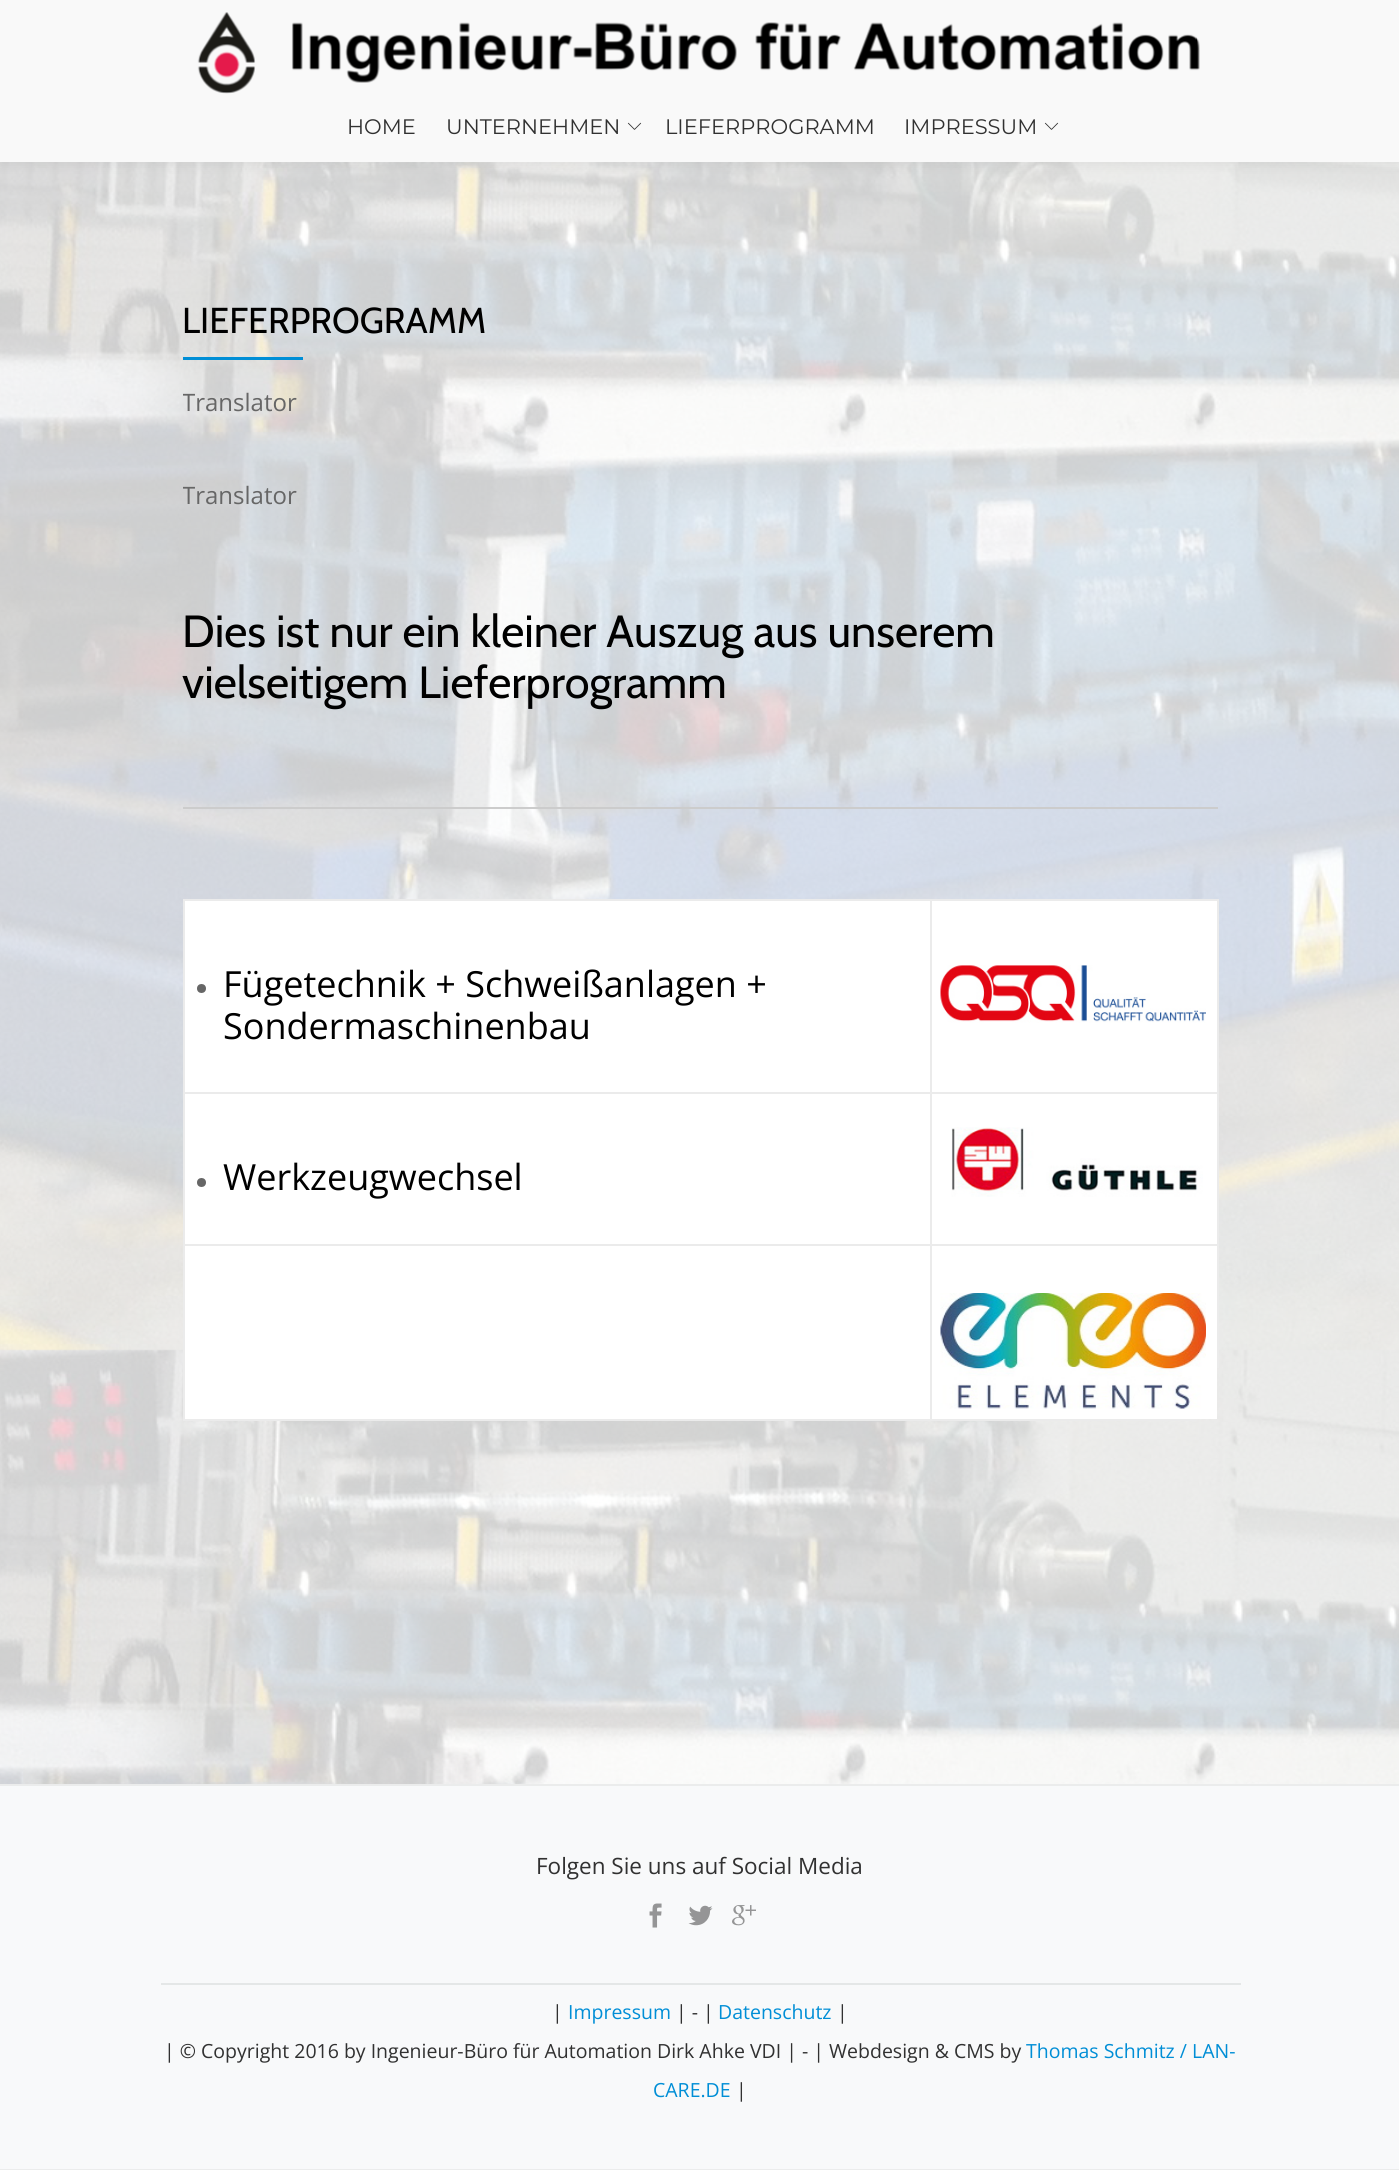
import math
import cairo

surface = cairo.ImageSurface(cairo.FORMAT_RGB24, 1399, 2170)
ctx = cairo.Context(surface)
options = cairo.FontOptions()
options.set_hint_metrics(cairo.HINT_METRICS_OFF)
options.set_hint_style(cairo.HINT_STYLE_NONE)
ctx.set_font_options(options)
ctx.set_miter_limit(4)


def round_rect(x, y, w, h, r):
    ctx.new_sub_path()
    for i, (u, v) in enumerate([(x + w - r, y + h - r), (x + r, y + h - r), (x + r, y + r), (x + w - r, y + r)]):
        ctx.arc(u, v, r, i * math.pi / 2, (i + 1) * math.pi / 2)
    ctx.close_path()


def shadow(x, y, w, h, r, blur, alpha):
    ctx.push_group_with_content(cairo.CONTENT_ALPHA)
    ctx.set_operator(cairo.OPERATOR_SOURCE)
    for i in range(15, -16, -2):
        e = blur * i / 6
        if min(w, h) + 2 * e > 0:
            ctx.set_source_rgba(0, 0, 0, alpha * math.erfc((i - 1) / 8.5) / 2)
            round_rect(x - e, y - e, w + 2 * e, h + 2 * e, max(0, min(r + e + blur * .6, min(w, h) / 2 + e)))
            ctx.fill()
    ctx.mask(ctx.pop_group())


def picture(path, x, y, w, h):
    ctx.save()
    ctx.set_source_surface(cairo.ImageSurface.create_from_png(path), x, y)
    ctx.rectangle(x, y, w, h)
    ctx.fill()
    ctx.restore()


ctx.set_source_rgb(1, 1, 1)
ctx.paint()
picture("img1.png", 0, 162, 1399, 1622)
ctx.set_source_rgb(0.196, 0.196, 0.196)
shadow(0, 3, 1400, 162, 0, 6, 0.08)
ctx.set_source_rgb(0.976, 0.976, 0.976)
ctx.rectangle(0, 0, 1399, 162)
ctx.fill()
picture("img2.png", 197, 12, 1003, 82)
ctx.select_font_face("Montserrat")
ctx.set_font_size(21)
ctx.set_source_rgb(0.192, 0.192, 0.192)
ctx.move_to(347, 134)
ctx.show_text("HOME")
ctx.move_to(446, 134)
ctx.show_text("UNTERNEHMEN")
picture("img3.png", 627, 122, 15, 8)
ctx.move_to(665, 134)
ctx.show_text("LIEFERPROGRAMM")
ctx.move_to(904, 134)
ctx.show_text("IMPRESSUM")
picture("img3.png", 1044, 122, 15, 8)
ctx.select_font_face("Cabin")
ctx.set_font_size(36)
ctx.set_source_rgb(0, 0, 0)
ctx.move_to(182, 333)
ctx.show_text("LIEFERPROGRAMM")
ctx.set_source_rgb(0, 0.557, 0.839)
ctx.rectangle(183, 357, 120, 3)
ctx.fill()
ctx.save()
ctx.rectangle(183, 383, 1035, 39)
ctx.clip()
ctx.select_font_face("Open Sans")
ctx.set_font_size(24)
ctx.set_source_rgb(0.4, 0.4, 0.4)
ctx.move_to(182, 411)
ctx.show_text("Translator")
ctx.restore()
ctx.save()
ctx.rectangle(183, 476, 1035, 39)
ctx.clip()
ctx.select_font_face("Open Sans")
ctx.set_font_size(24)
ctx.set_source_rgb(0.4, 0.4, 0.4)
ctx.move_to(182, 504)
ctx.show_text("Translator")
ctx.restore()
ctx.set_font_size(45)
ctx.set_source_rgb(0, 0, 0)
ctx.move_to(182, 647)
ctx.show_text("Dies ist nur ein kleiner Auszug aus unserem")
ctx.move_to(182, 698)
ctx.show_text("vielseitigem Lieferprogramm")
ctx.set_source_rgb(0.8, 0.8, 0.8)
ctx.rectangle(183, 807, 1035, 2)
ctx.fill()
ctx.set_source_rgb(0.918, 0.918, 0.918)
ctx.rectangle(183, 899, 1035, 2)
ctx.fill()
ctx.rectangle(1217, 899, 2, 469)
ctx.fill()
ctx.rectangle(183, 1419, 1013, 2)
ctx.fill()
ctx.rectangle(183, 899, 2, 522)
ctx.fill()
ctx.set_source_rgb(1, 1, 1)
ctx.rectangle(185, 901, 745, 191)
ctx.fill()
ctx.set_source_rgb(0.4, 0.4, 0.4)
ctx.arc(201.5, 988.5, 4.5, 0, 2 * math.pi)
ctx.fill()
ctx.select_font_face("Open Sans")
ctx.set_font_size(36)
ctx.set_source_rgb(0, 0, 0)
ctx.move_to(223, 997)
ctx.show_text("Fügetechnik + Schweißanlagen +")
ctx.move_to(223, 1039)
ctx.show_text("Sondermaschinenbau")
ctx.set_source_rgb(1, 1, 1)
ctx.rectangle(932, 901, 285, 191)
ctx.fill()
ctx.set_source_rgb(0.918, 0.918, 0.918)
ctx.rectangle(930, 1092, 288, 2)
ctx.fill()
ctx.rectangle(930, 1244, 288, 2)
ctx.fill()
ctx.rectangle(930, 1244, 2, 177)
ctx.fill()
ctx.rectangle(183, 1244, 749, 2)
ctx.fill()
ctx.rectangle(930, 1092, 2, 153)
ctx.fill()
ctx.rectangle(183, 1092, 749, 2)
ctx.fill()
ctx.rectangle(930, 899, 2, 195)
ctx.fill()
picture("img4.png", 940, 965, 266, 58)
ctx.set_source_rgb(1, 1, 1)
ctx.rectangle(185, 1094, 745, 150)
ctx.fill()
ctx.set_source_rgb(0.4, 0.4, 0.4)
ctx.arc(201.5, 1182.5, 4.5, 0, 2 * math.pi)
ctx.fill()
ctx.set_source_rgb(0, 0, 0)
ctx.move_to(223, 1190)
ctx.show_text("Werkzeugwechsel")
ctx.set_source_rgb(1, 1, 1)
ctx.rectangle(932, 1094, 285, 150)
ctx.fill()
picture("img5.png", 951, 1127, 252, 70)
ctx.rectangle(185, 1246, 745, 173)
ctx.fill()
ctx.rectangle(932, 1246, 285, 173)
ctx.fill()
picture("img6.png", 940, 1293, 266, 116)
ctx.set_source_rgb(0.969, 0.973, 0.98)
ctx.rectangle(0, 1786, 1399, 383)
ctx.fill()
ctx.set_source_rgb(0.918, 0.922, 0.925)
ctx.rectangle(0, 1784, 1399, 2)
ctx.fill()
ctx.rectangle(0, 2169, 1399, 1)
ctx.fill()
ctx.set_font_size(22.5)
ctx.set_source_rgb(0.192, 0.192, 0.192)
ctx.move_to(536, 1874)
ctx.show_text("Folgen Sie uns auf Social Media")
picture("img7.png", 649, 1903, 13, 25)
picture("img8.png", 688, 1905, 25, 21)
picture("img9.png", 732, 1905, 24, 21)
ctx.set_source_rgb(0.894, 0.906, 0.906)
ctx.rectangle(161, 1983, 1080, 2)
ctx.fill()
ctx.set_font_size(19.5)
ctx.set_source_rgb(0.192, 0.192, 0.192)
ctx.move_to(552, 2019)
ctx.show_text("|")
ctx.set_source_rgb(0, 0.557, 0.839)
ctx.move_to(568, 2019)
ctx.show_text("Impressum")
ctx.set_source_rgb(0.192, 0.192, 0.192)
ctx.move_to(676, 2019)
ctx.show_text("| - |")
ctx.set_source_rgb(0, 0.557, 0.839)
ctx.move_to(718, 2019)
ctx.show_text("Datenschutz")
ctx.set_source_rgb(0.192, 0.192, 0.192)
ctx.move_to(837, 2019)
ctx.show_text("|")
ctx.move_to(164, 2058)
ctx.show_text("| © Copyright 2016 by Ingenieur-Büro für Automation Dirk Ahke VDI | - | Webdesign & CMS by")
ctx.set_source_rgb(0, 0.557, 0.839)
ctx.move_to(1026, 2058)
ctx.show_text("Thomas Schmitz / LAN-")
ctx.move_to(653, 2097)
ctx.show_text("CARE.DE")
ctx.set_source_rgb(0.192, 0.192, 0.192)
ctx.move_to(736, 2097)
ctx.show_text("|")
surface.write_to_png("page.png")
